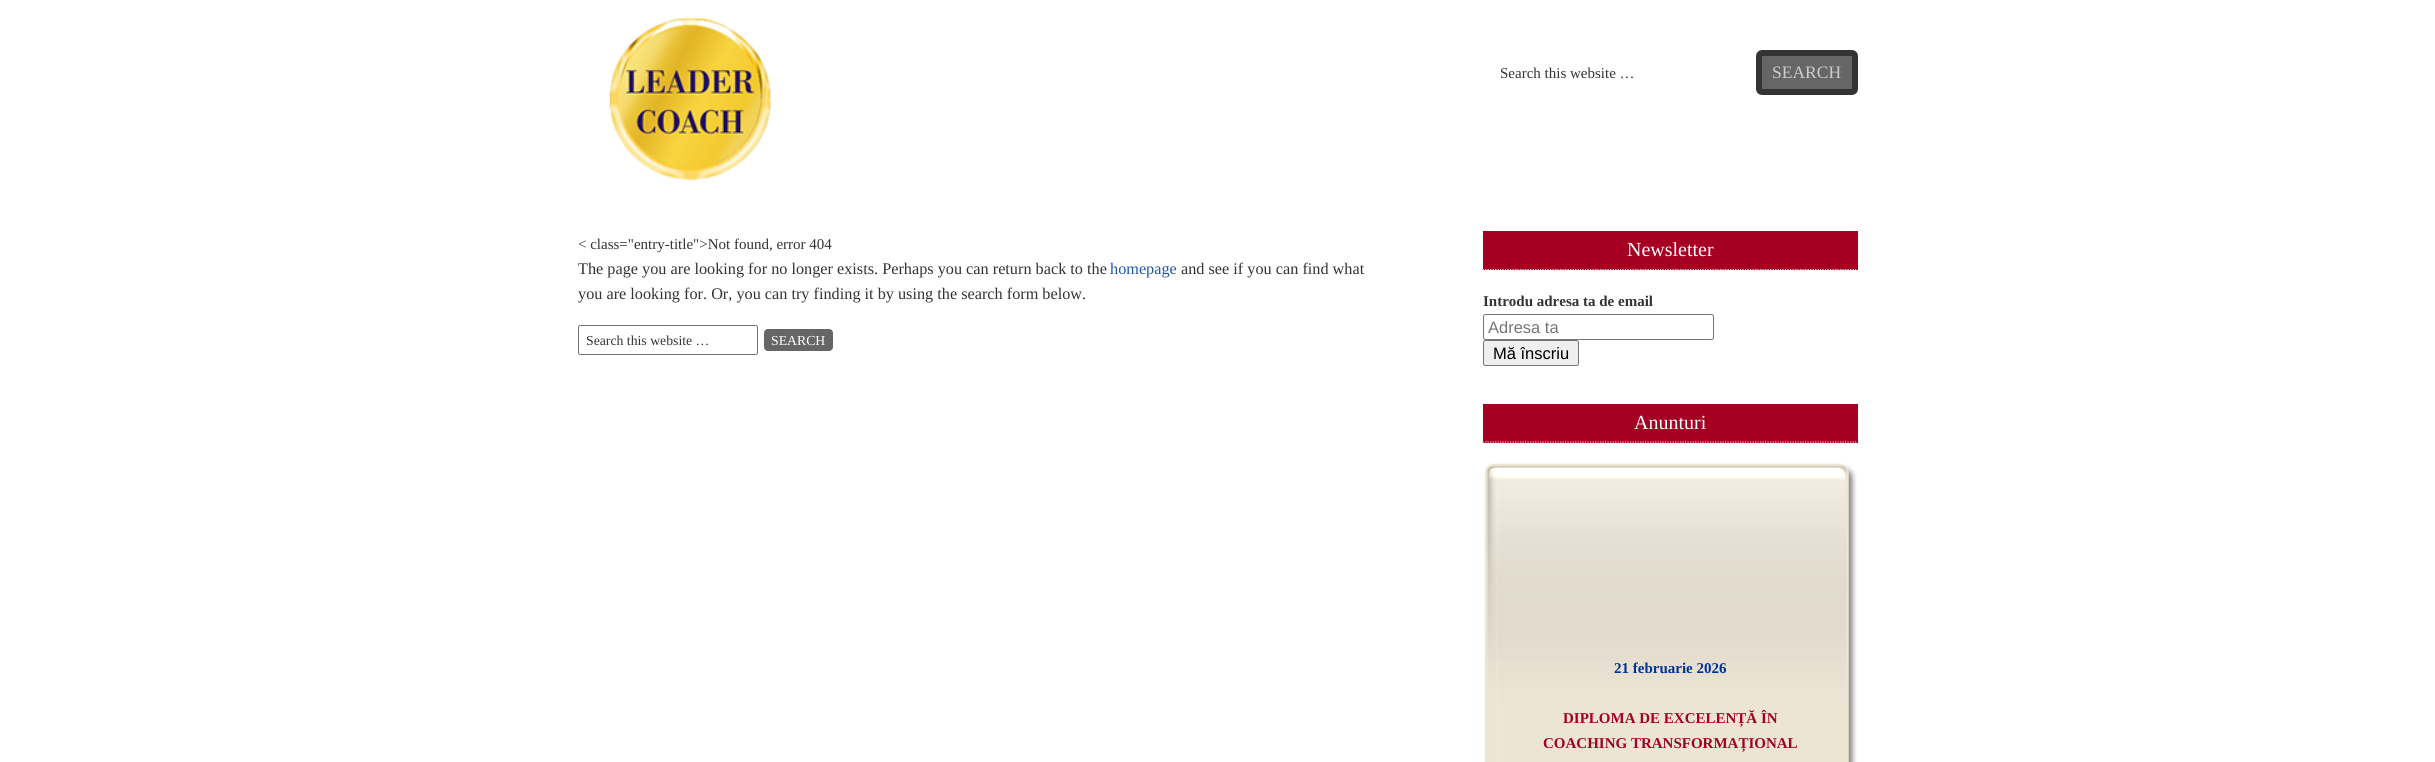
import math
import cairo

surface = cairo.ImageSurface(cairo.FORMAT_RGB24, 2435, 762)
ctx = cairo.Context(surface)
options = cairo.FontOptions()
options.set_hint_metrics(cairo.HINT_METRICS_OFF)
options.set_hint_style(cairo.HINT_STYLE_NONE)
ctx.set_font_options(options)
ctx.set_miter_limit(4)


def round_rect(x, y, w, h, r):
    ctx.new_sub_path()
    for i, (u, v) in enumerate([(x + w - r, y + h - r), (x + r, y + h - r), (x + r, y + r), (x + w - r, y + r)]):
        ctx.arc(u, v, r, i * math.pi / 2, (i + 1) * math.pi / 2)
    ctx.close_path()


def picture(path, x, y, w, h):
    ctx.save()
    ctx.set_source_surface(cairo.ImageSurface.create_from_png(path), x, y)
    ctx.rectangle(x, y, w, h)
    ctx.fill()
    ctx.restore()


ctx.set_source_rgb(1, 1, 1)
ctx.paint()
picture("img1.png", 608, 17, 164, 163)
ctx.select_font_face("Liberation Serif")
ctx.set_font_size(15)
ctx.set_source_rgb(0.2, 0.2, 0.2)
ctx.move_to(1500, 78)
ctx.show_text("Search this website …")
ctx.set_source_rgb(0.4, 0.4, 0.4)
round_rect(1759, 53, 96, 39, 3)
ctx.fill_preserve()
ctx.set_source_rgb(0.2, 0.2, 0.2)
ctx.set_line_width(6)
ctx.stroke()
ctx.set_font_size(17.5)
ctx.set_source_rgb(0.8, 0.8, 0.8)
ctx.move_to(1772, 78)
ctx.show_text("SEARCH")
ctx.set_font_size(15)
ctx.set_source_rgb(0.2, 0.2, 0.2)
ctx.move_to(578, 249)
ctx.show_text("< class=\"entry-title\">Not found, error 404")
ctx.set_font_size(16.25)
ctx.move_to(578, 274)
ctx.show_text("The page you are looking for no longer exists. Perhaps you can return back to the")
ctx.set_source_rgb(0.133, 0.333, 0.667)
ctx.move_to(1110, 274)
ctx.show_text("homepage")
ctx.set_source_rgb(0.2, 0.2, 0.2)
ctx.move_to(1181, 274)
ctx.show_text("and see if you can find what")
ctx.move_to(578, 299)
ctx.show_text("you are looking for. Or, you can try finding it by using the search form below.")
round_rect(578.5, 325.5, 179, 29, 2)
ctx.set_source_rgb(0.463, 0.463, 0.463)
ctx.set_line_width(1)
ctx.stroke()
ctx.set_font_size(13.75)
ctx.set_source_rgb(0.2, 0.2, 0.2)
ctx.move_to(586, 345)
ctx.show_text("Search this website …")
ctx.set_source_rgb(0.4, 0.4, 0.4)
round_rect(764.5, 329.5, 68, 21, 3.5)
ctx.fill_preserve()
ctx.stroke()
ctx.set_source_rgb(1, 1, 1)
ctx.move_to(771, 345)
ctx.show_text("SEARCH")
ctx.set_source_rgb(0.647, 0, 0.129)
ctx.rectangle(1483, 231, 375, 39)
ctx.fill()
ctx.new_path()
ctx.move_to(1482.5, 269.5)
ctx.line_to(1857.5, 269.5)
ctx.set_source_rgb(0.8, 0.8, 0.8)
ctx.set_line_width(1.2)
ctx.set_dash([1.25, 1.25])
ctx.stroke()
ctx.set_font_size(20)
ctx.set_source_rgb(1, 1, 1)
ctx.move_to(1627, 256)
ctx.show_text("Newsletter")
ctx.select_font_face("Liberation Serif", cairo.FONT_SLANT_NORMAL, cairo.FONT_WEIGHT_BOLD)
ctx.set_font_size(15)
ctx.set_source_rgb(0.2, 0.2, 0.2)
ctx.move_to(1483, 306)
ctx.show_text("Introdu adresa ta de email")
round_rect(1483.5, 314.5, 230, 25, 2)
ctx.set_source_rgb(0.463, 0.463, 0.463)
ctx.set_line_width(1)
ctx.set_dash([])
ctx.stroke()
ctx.select_font_face("Liberation Sans")
ctx.set_font_size(16.5)
ctx.set_source_rgb(0.459, 0.459, 0.459)
ctx.move_to(1488, 333)
ctx.show_text("Adresa ta")
ctx.set_source_rgb(0.937, 0.937, 0.937)
round_rect(1483.5, 340.5, 95, 25, 2)
ctx.fill_preserve()
ctx.set_source_rgb(0.463, 0.463, 0.463)
ctx.stroke()
ctx.set_source_rgb(0, 0, 0)
ctx.move_to(1493, 359)
ctx.show_text("Mă înscriu")
ctx.set_source_rgb(0.647, 0, 0.129)
ctx.rectangle(1483, 404, 375, 39)
ctx.fill()
ctx.new_path()
ctx.move_to(1482.5, 442)
ctx.line_to(1857.5, 442)
ctx.set_source_rgb(0.8, 0.8, 0.8)
ctx.set_line_width(1.2)
ctx.set_dash([1.25, 1.25])
ctx.stroke()
ctx.select_font_face("Liberation Serif")
ctx.set_font_size(20)
ctx.set_source_rgb(1, 1, 1)
ctx.move_to(1634, 429)
ctx.show_text("Anunturi")
picture("img2.png", 1497, 463, 360, 299)
picture("img3.png", 1484, 463, 14, 299)
ctx.select_font_face("Liberation Serif", cairo.FONT_SLANT_NORMAL, cairo.FONT_WEIGHT_BOLD)
ctx.set_font_size(15)
ctx.set_source_rgb(0, 0.2, 0.6)
ctx.move_to(1614, 673)
ctx.show_text("21 februarie 2026")
ctx.set_source_rgb(0.647, 0, 0.129)
ctx.move_to(1563, 723)
ctx.show_text("DIPLOMA DE EXCELENȚĂ ÎN")
ctx.move_to(1543, 748)
ctx.show_text("COACHING TRANSFORMAȚIONAL")
surface.write_to_png("page.png")
